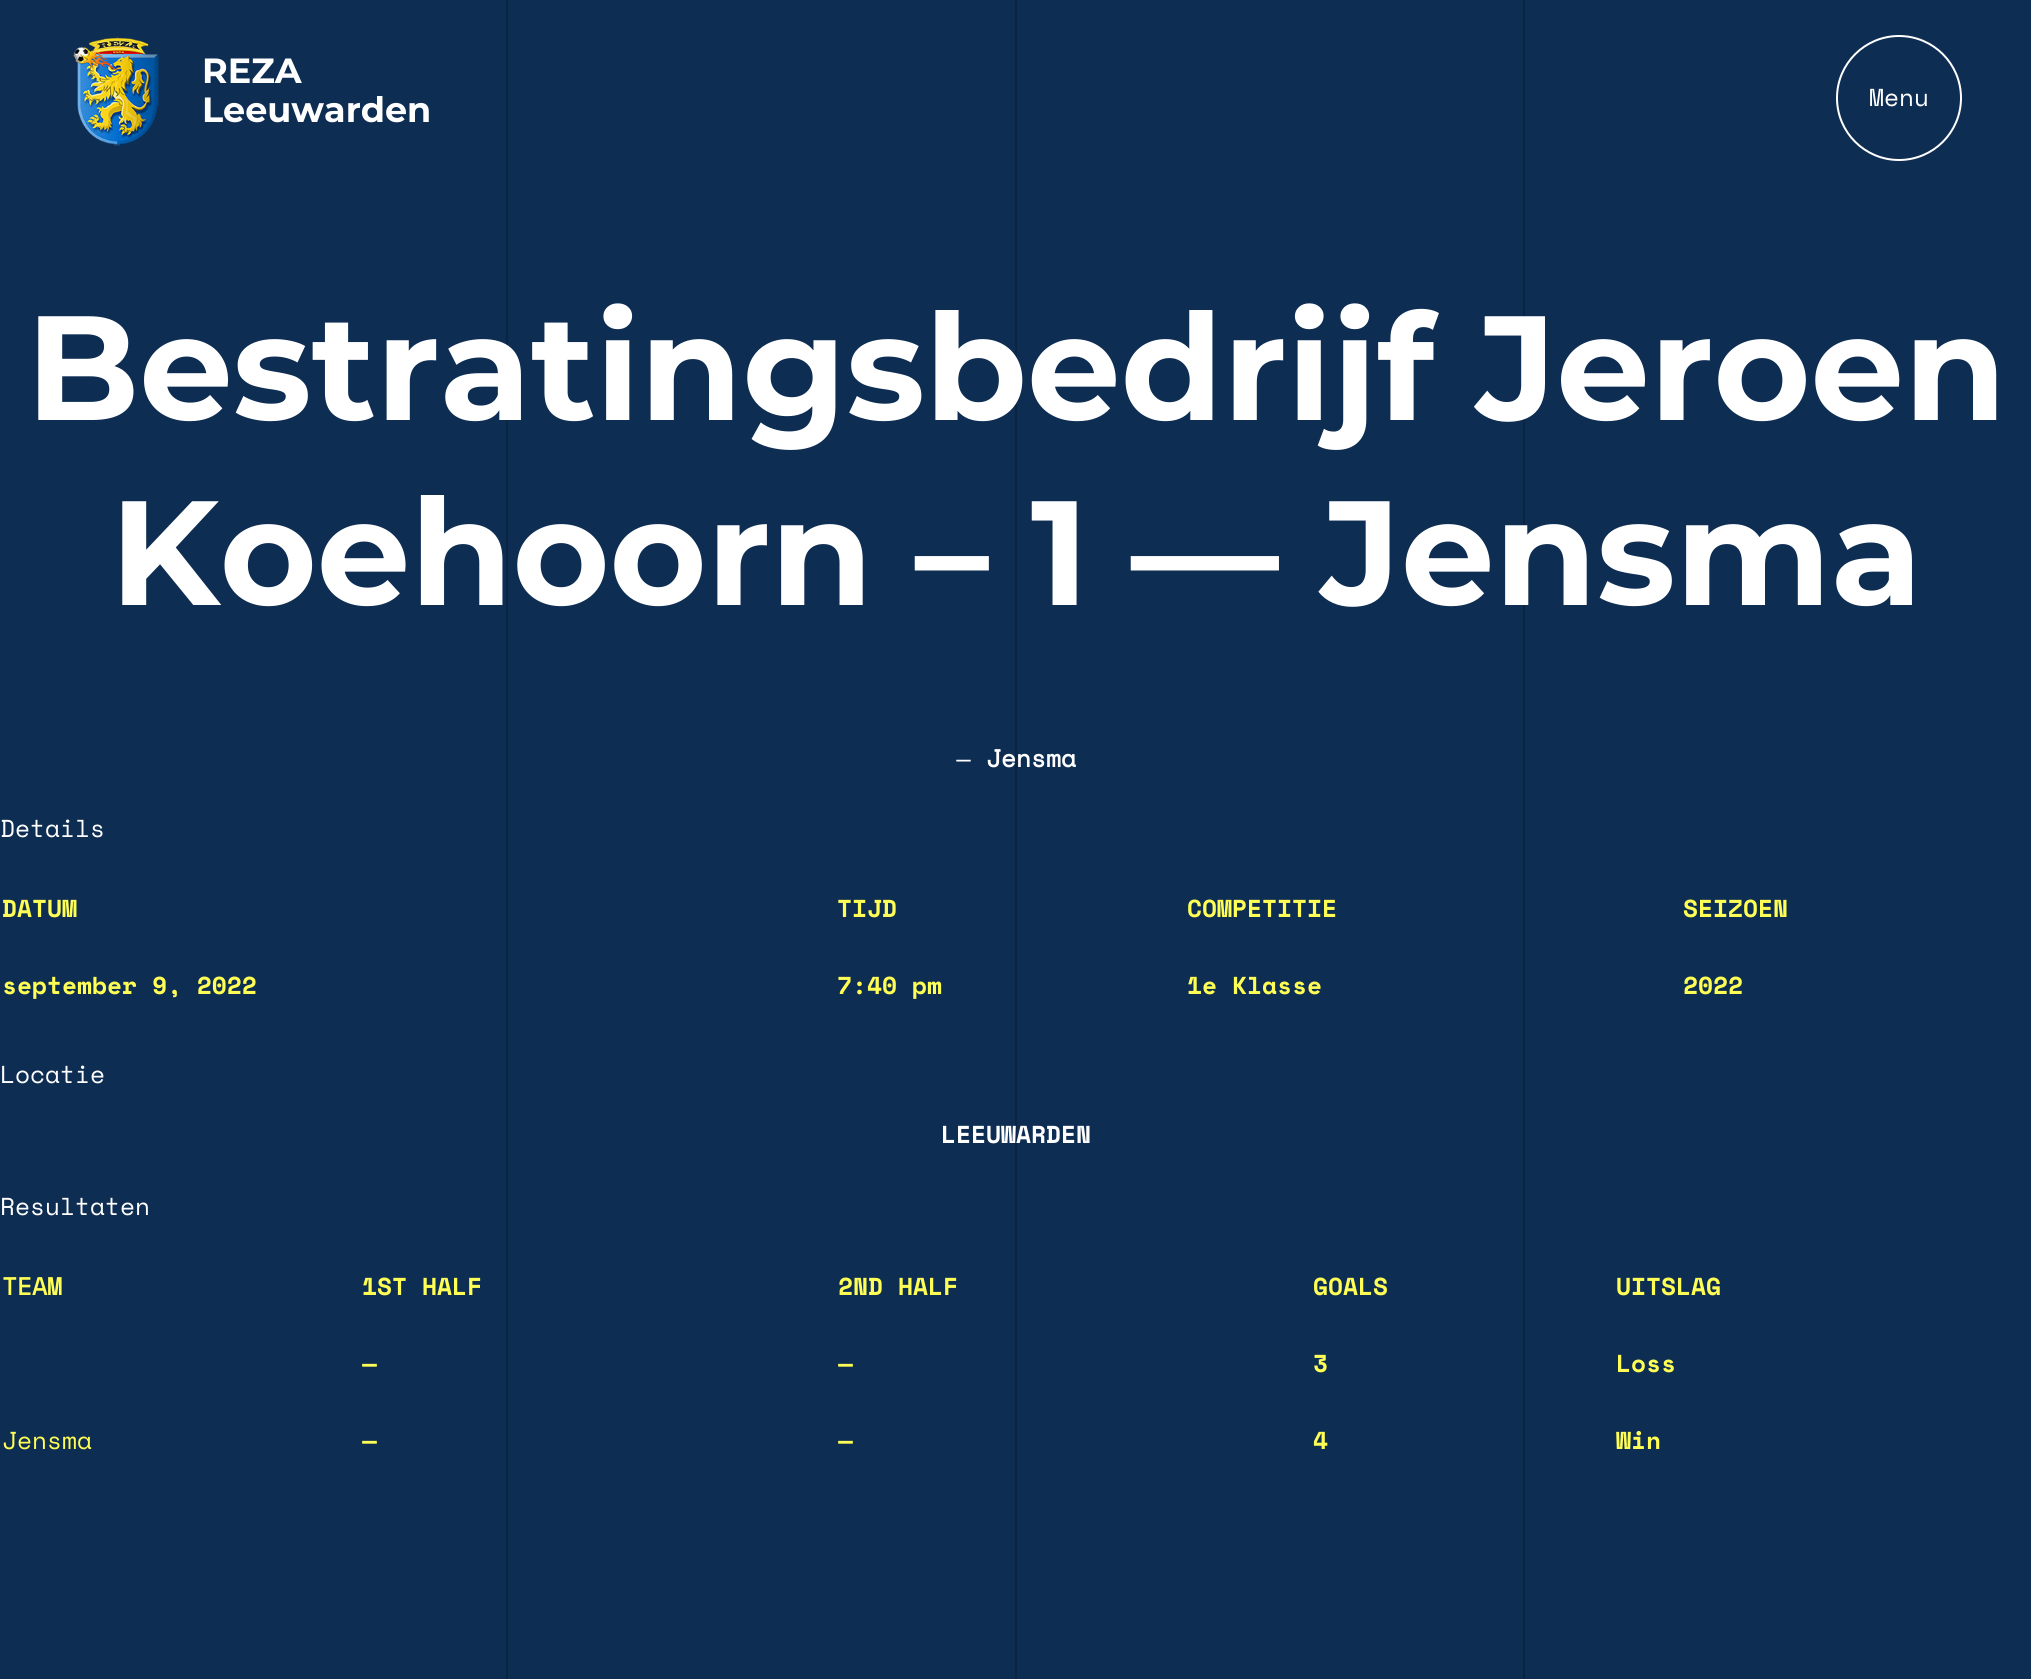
import math
import cairo

surface = cairo.ImageSurface(cairo.FORMAT_RGB24, 2031, 1679)
ctx = cairo.Context(surface)
options = cairo.FontOptions()
options.set_hint_metrics(cairo.HINT_METRICS_OFF)
options.set_hint_style(cairo.HINT_STYLE_NONE)
ctx.set_font_options(options)
ctx.set_miter_limit(4)


def picture(path, x, y, w, h):
    ctx.save()
    ctx.set_source_surface(cairo.ImageSurface.create_from_png(path), x, y)
    ctx.rectangle(x, y, w, h)
    ctx.fill()
    ctx.restore()


ctx.set_source_rgb(0.055, 0.176, 0.325)
ctx.paint()
ctx.set_source_rgb(0.043, 0.141, 0.259)
ctx.rectangle(506, 0, 2, 1679)
ctx.fill()
ctx.rectangle(1015, 0, 2, 1679)
ctx.fill()
ctx.rectangle(1523, 0, 2, 1679)
ctx.fill()
picture("img1.png", 72, 36, 87, 110)
ctx.select_font_face("Montserrat", cairo.FONT_SLANT_NORMAL, cairo.FONT_WEIGHT_BOLD)
ctx.set_font_size(35)
ctx.set_source_rgb(1, 1, 1)
ctx.move_to(202, 83)
ctx.show_text("REZA")
ctx.move_to(202, 122)
ctx.show_text("Leeuwarden")
ctx.new_path()
ctx.arc(1899, 98, 62, 0, 2 * math.pi)
ctx.stroke()
ctx.select_font_face("Space Mono")
ctx.set_font_size(24.5)
ctx.move_to(1869, 106)
ctx.show_text("Menu")
ctx.select_font_face("Montserrat", cairo.FONT_SLANT_NORMAL, cairo.FONT_WEIGHT_BOLD)
ctx.set_font_size(148.2)
ctx.move_to(26, 420)
ctx.show_text("Bestratingsbedrijf Jeroen")
ctx.move_to(110, 605)
ctx.show_text("Koehoorn – 1 — Jensma")
ctx.select_font_face("Space Mono")
ctx.set_font_size(24.5)
ctx.move_to(956, 767)
ctx.show_text("—")
ctx.select_font_face("Space Mono", cairo.FONT_SLANT_NORMAL, cairo.FONT_WEIGHT_BOLD)
ctx.move_to(986, 767)
ctx.show_text("Jensma")
ctx.select_font_face("Space Mono")
ctx.move_to(0, 837)
ctx.show_text("Details")
ctx.select_font_face("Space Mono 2", cairo.FONT_SLANT_NORMAL, cairo.FONT_WEIGHT_BOLD)
ctx.set_source_rgb(1, 0.996, 0.329)
ctx.move_to(2, 917)
ctx.show_text("DATUM")
ctx.move_to(837, 917)
ctx.show_text("TIJD")
ctx.move_to(1187, 917)
ctx.show_text("COMPETITIE")
ctx.move_to(1683, 917)
ctx.show_text("SEIZOEN")
ctx.move_to(2, 994)
ctx.show_text("september 9, 2022")
ctx.move_to(837, 994)
ctx.show_text("7:40 pm")
ctx.move_to(1187, 994)
ctx.show_text("1e Klasse")
ctx.move_to(1683, 994)
ctx.show_text("2022")
ctx.select_font_face("Space Mono")
ctx.set_source_rgb(1, 1, 1)
ctx.move_to(0, 1083)
ctx.show_text("Locatie")
ctx.select_font_face("Space Mono 2", cairo.FONT_SLANT_NORMAL, cairo.FONT_WEIGHT_BOLD)
ctx.move_to(941, 1143)
ctx.show_text("LEEUWARDEN")
ctx.select_font_face("Space Mono")
ctx.move_to(0, 1215)
ctx.show_text("Resultaten")
ctx.select_font_face("Space Mono", cairo.FONT_SLANT_NORMAL, cairo.FONT_WEIGHT_BOLD)
ctx.set_source_rgb(1, 0.996, 0.329)
ctx.move_to(2, 1295)
ctx.show_text("TEAM")
ctx.select_font_face("Space Mono 2", cairo.FONT_SLANT_NORMAL, cairo.FONT_WEIGHT_BOLD)
ctx.move_to(362, 1295)
ctx.show_text("1ST HALF")
ctx.move_to(838, 1295)
ctx.show_text("2ND HALF")
ctx.move_to(1313, 1295)
ctx.show_text("GOALS")
ctx.move_to(1616, 1295)
ctx.show_text("UITSLAG")
ctx.move_to(362, 1372)
ctx.show_text("—")
ctx.move_to(838, 1372)
ctx.show_text("—")
ctx.move_to(1313, 1372)
ctx.show_text("3")
ctx.move_to(1616, 1372)
ctx.show_text("Loss")
ctx.select_font_face("Space Mono")
ctx.move_to(2, 1449)
ctx.show_text("Jensma")
ctx.select_font_face("Space Mono 2", cairo.FONT_SLANT_NORMAL, cairo.FONT_WEIGHT_BOLD)
ctx.move_to(362, 1449)
ctx.show_text("—")
ctx.move_to(838, 1449)
ctx.show_text("—")
ctx.move_to(1313, 1449)
ctx.show_text("4")
ctx.move_to(1616, 1449)
ctx.show_text("Win")
surface.write_to_png("page.png")
